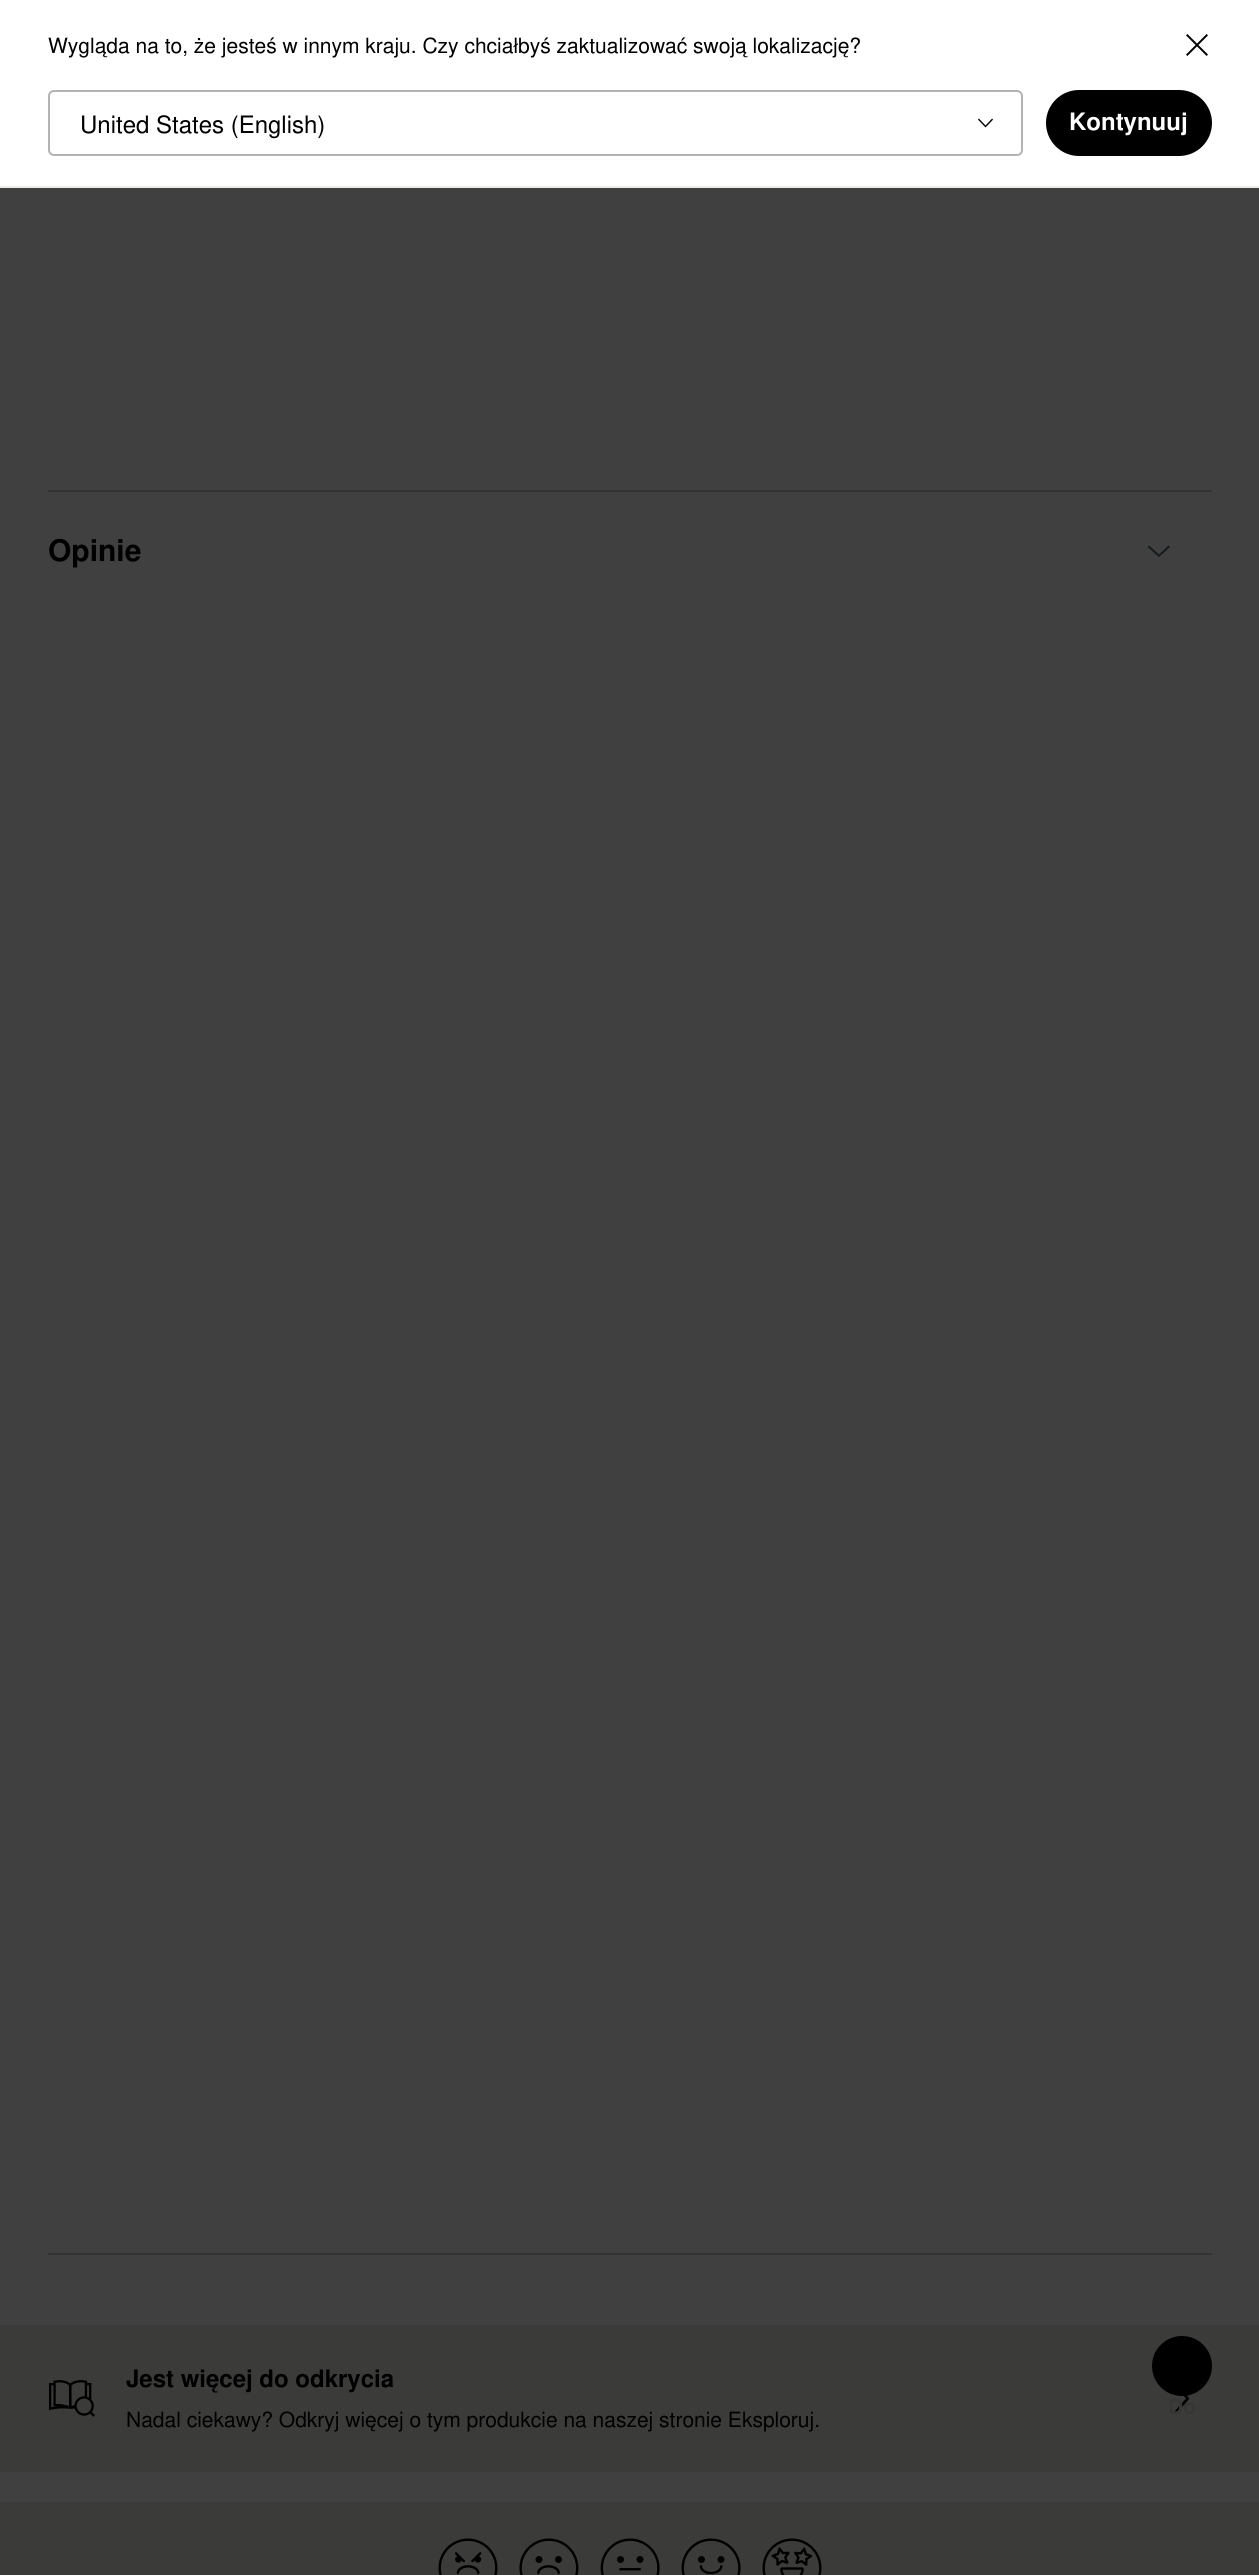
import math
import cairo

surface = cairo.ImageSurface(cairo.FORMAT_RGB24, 1259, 2575)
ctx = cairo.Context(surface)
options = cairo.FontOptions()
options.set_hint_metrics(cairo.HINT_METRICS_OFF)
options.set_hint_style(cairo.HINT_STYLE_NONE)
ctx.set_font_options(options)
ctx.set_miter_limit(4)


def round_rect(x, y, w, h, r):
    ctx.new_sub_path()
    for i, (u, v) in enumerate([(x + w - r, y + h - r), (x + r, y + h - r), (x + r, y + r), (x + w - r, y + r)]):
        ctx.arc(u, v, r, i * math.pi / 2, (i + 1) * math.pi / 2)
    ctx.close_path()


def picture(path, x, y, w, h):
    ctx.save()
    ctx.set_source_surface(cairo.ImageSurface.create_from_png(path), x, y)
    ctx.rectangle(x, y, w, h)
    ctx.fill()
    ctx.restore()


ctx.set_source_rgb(0.251, 0.251, 0.251)
ctx.paint()
ctx.set_source_rgb(1, 1, 1)
ctx.rectangle(0, 0, 1259, 186)
ctx.fill()
ctx.set_source_rgb(0.925, 0.922, 0.914)
ctx.rectangle(0, 186, 1259, 2)
ctx.fill()
ctx.select_font_face("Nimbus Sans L")
ctx.set_font_size(21)
ctx.set_source_rgb(0, 0, 0)
ctx.move_to(48, 53)
ctx.show_text("Wygląda na to, że jesteś w innym kraju. Czy chciałbyś zaktualizować swoją lokalizację?")
picture("img1.png", 1186, 34, 22, 22)
round_rect(49, 91, 973, 64, 5)
ctx.set_source_rgb(0.698, 0.702, 0.702)
ctx.stroke()
ctx.set_font_size(24)
ctx.set_source_rgb(0, 0, 0)
ctx.move_to(80, 133)
ctx.show_text("United States (English)")
picture("img2.png", 978, 118, 15, 10)
round_rect(1047, 91, 164, 64, 32)
ctx.fill_preserve()
ctx.stroke()
ctx.select_font_face("Nimbus Sans L", cairo.FONT_SLANT_NORMAL, cairo.FONT_WEIGHT_BOLD)
ctx.set_source_rgb(1, 1, 1)
ctx.move_to(1069, 130)
ctx.show_text("Kontynuuj")
ctx.set_source_rgb(0.196, 0.2, 0.2)
ctx.rectangle(48, 490, 1164, 2)
ctx.fill()
ctx.rectangle(48, 2253, 1164, 2)
ctx.fill()
ctx.set_font_size(30)
ctx.set_source_rgb(0, 0, 0)
ctx.move_to(48, 561)
ctx.show_text("Opinie")
ctx.set_source_rgb(0.082, 0.102, 0.114)
ctx.new_path()
ctx.move_to(1168.5, 545.5)
ctx.line_to(1170, 547)
ctx.line_to(1159, 557)
ctx.line_to(1147.5, 547)
ctx.line_to(1149, 545.5)
ctx.line_to(1159, 554.5)
ctx.close_path()
ctx.fill()
ctx.set_source_rgb(0.231, 0.231, 0.227)
ctx.rectangle(0, 2325, 1259, 147)
ctx.fill()
picture("img3.png", 48, 2380, 47, 37)
ctx.set_font_size(24)
ctx.set_source_rgb(0, 0, 0)
ctx.move_to(126, 2387)
ctx.show_text("Jest więcej do odkrycia")
ctx.new_path()
ctx.move_to(1174.5, 2385)
ctx.line_to(1176.5, 2383.5)
ctx.line_to(1189.5, 2398.5)
ctx.line_to(1176.5, 2413.5)
ctx.line_to(1174.5, 2411.5)
ctx.line_to(1186, 2398.5)
ctx.close_path()
ctx.fill()
ctx.save()
ctx.rectangle(1167, 2384, 30, 30)
ctx.clip()
ctx.set_font_size(21)
ctx.set_source_rgb(0.212, 0.212, 0.208)
ctx.move_to(1168, 2414)
ctx.show_text("Do")
ctx.restore()
ctx.select_font_face("Nimbus Sans L")
ctx.set_font_size(21)
ctx.move_to(126, 2427)
ctx.show_text("Nadal ciekawy? Odkryj więcej o tym produkcie na naszej stronie Eksploruj.")
ctx.set_source_rgb(0.231, 0.231, 0.227)
ctx.rectangle(0, 2502, 1259, 73)
ctx.fill()
picture("img4.png", 438, 2538, 60, 37)
picture("img5.png", 519, 2538, 60, 37)
picture("img6.png", 600, 2538, 60, 37)
picture("img7.png", 681, 2538, 60, 37)
picture("img8.png", 762, 2538, 60, 37)
ctx.arc(1182, 2366, 28.5, 0, 2 * math.pi)
ctx.set_source_rgb(0, 0, 0)
ctx.set_line_width(3)
ctx.stroke()
ctx.arc(1182.5, 2365.5, 28.5, 0, 2 * math.pi)
ctx.fill()
surface.write_to_png("page.png")
